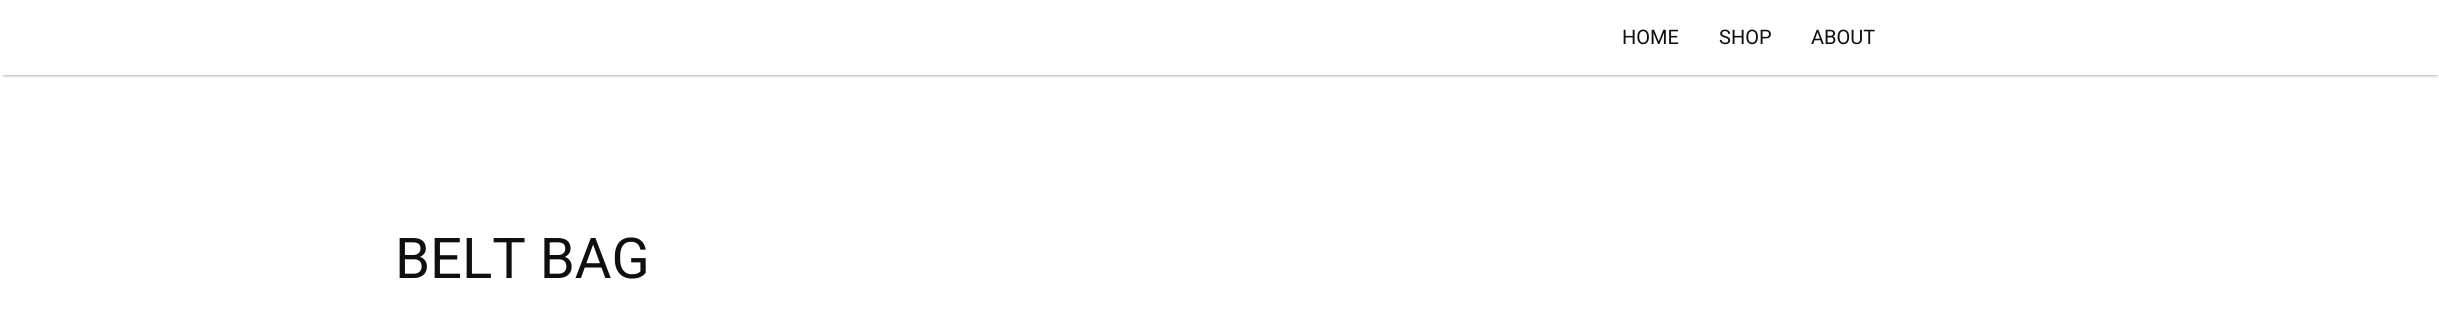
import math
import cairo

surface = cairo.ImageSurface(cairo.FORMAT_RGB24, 2439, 317)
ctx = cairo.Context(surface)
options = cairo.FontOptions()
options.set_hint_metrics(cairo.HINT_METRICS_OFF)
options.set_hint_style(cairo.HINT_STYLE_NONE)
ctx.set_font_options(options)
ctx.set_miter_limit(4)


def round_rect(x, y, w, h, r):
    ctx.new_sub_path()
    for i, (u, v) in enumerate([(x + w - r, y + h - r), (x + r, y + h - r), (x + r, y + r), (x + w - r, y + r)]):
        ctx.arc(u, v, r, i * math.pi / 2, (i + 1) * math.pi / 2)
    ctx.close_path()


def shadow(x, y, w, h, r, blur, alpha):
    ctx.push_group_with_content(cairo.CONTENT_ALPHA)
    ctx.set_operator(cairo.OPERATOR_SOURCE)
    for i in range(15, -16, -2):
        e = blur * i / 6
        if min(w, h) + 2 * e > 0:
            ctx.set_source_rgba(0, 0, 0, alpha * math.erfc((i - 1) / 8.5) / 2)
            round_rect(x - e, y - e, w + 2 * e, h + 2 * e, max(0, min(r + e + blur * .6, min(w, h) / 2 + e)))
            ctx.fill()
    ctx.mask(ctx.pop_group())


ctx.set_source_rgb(1, 1, 1)
ctx.paint()
ctx.save()
ctx.rectangle(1, 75, 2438, 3)
ctx.clip()
ctx.set_source_rgb(0, 0, 0)
shadow(4, 8, 2432, 67, 0, 2, 0.5)
ctx.restore()
ctx.select_font_face("Roboto")
ctx.set_font_size(20)
ctx.set_source_rgb(0.059, 0.059, 0.059)
ctx.move_to(1622, 44)
ctx.show_text("HOME")
ctx.move_to(1719, 44)
ctx.show_text("SHOP")
ctx.move_to(1811, 44)
ctx.show_text("ABOUT")
ctx.set_font_size(56.25)
ctx.move_to(395, 278)
ctx.show_text("BELT BAG")
surface.write_to_png("page.png")
